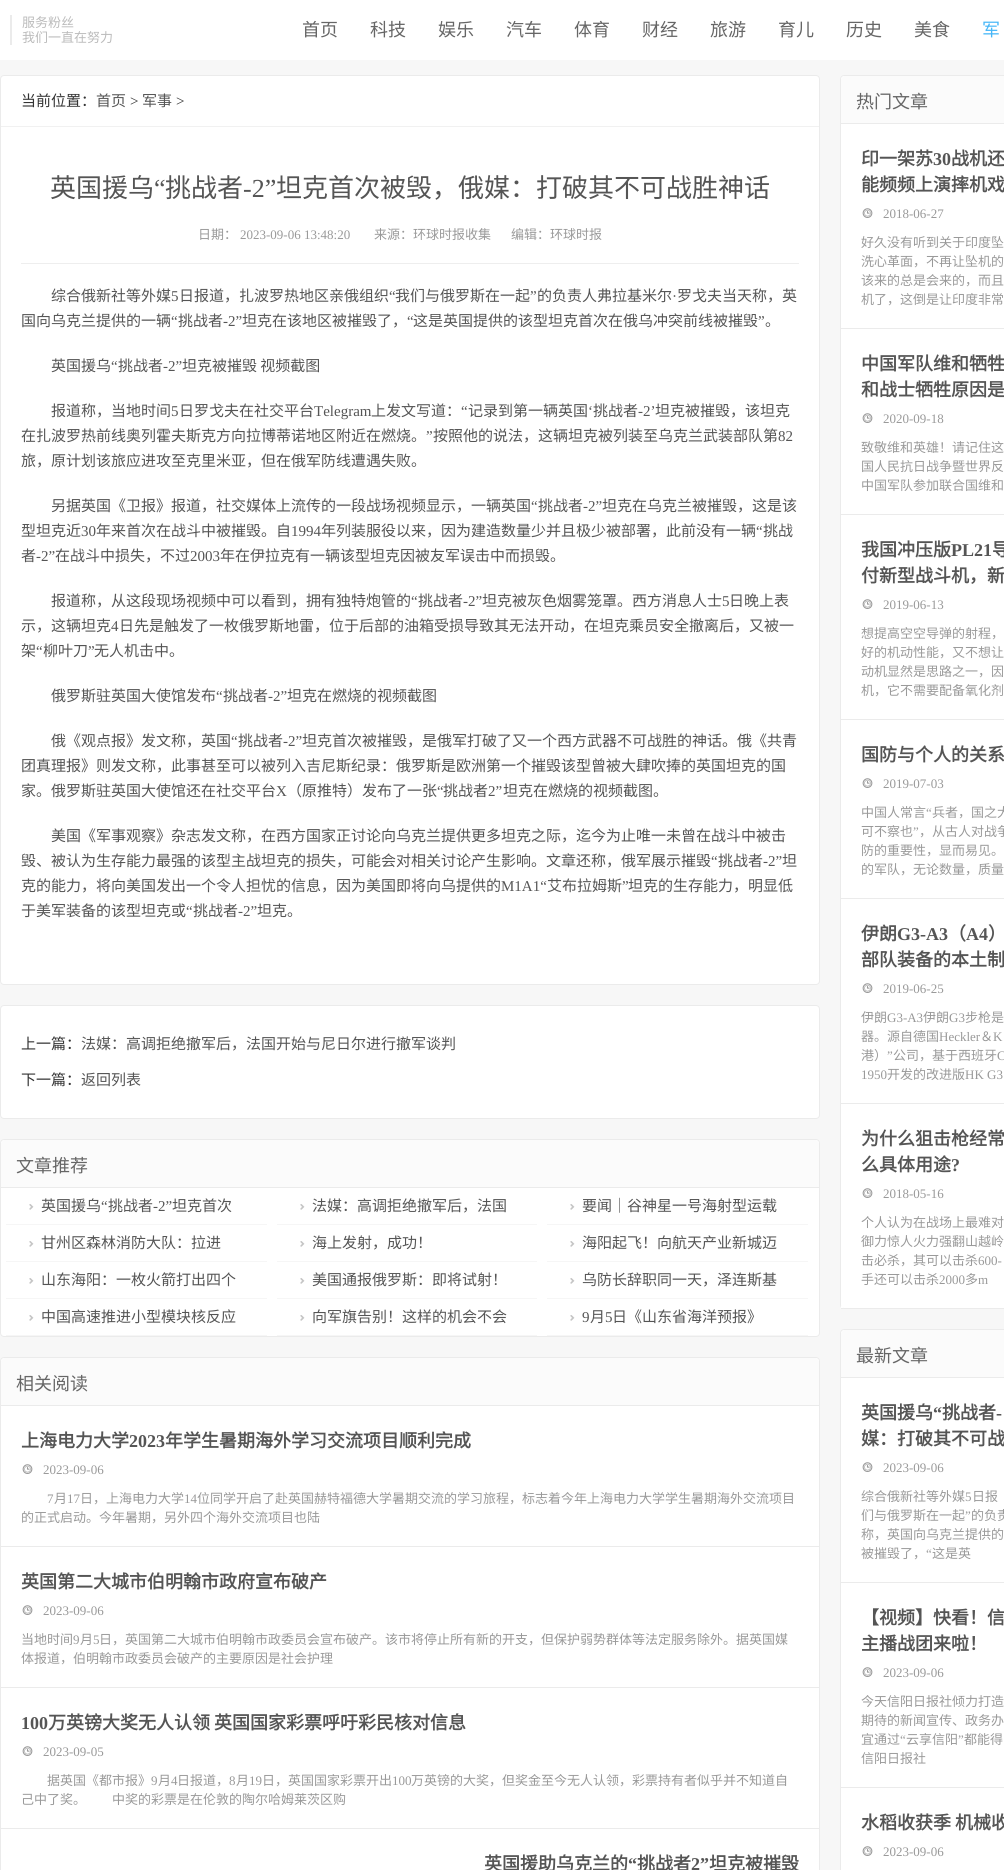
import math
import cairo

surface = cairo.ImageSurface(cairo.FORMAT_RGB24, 1004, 1870)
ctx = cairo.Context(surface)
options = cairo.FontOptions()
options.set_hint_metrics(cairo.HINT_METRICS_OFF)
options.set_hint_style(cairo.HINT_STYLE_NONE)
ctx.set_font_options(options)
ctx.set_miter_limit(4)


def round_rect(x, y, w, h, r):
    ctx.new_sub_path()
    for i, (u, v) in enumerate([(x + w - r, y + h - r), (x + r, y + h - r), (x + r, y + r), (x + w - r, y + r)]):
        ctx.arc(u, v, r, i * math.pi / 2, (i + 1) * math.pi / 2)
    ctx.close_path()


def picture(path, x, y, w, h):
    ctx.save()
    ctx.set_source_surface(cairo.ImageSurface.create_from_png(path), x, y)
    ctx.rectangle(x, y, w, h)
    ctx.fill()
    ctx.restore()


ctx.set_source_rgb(0.965, 0.965, 0.965)
ctx.paint()
ctx.set_source_rgb(1, 1, 1)
ctx.rectangle(0, 0, 1004, 60)
ctx.fill()
ctx.set_source_rgb(0.918, 0.918, 0.918)
ctx.rectangle(10, 15, 2, 30)
ctx.fill()
ctx.select_font_face("Noto Sans CJK SC")
ctx.set_font_size(13)
ctx.set_source_rgb(0.733, 0.733, 0.733)
ctx.move_to(22, 27)
ctx.show_text("服务粉丝")
ctx.move_to(22, 42)
ctx.show_text("我们一直在努力")
ctx.set_font_size(18)
ctx.set_source_rgb(0.4, 0.4, 0.4)
ctx.move_to(302, 36)
ctx.show_text("首页")
ctx.move_to(370, 36)
ctx.show_text("科技")
ctx.move_to(438, 36)
ctx.show_text("娱乐")
ctx.move_to(506, 36)
ctx.show_text("汽车")
ctx.move_to(574, 36)
ctx.show_text("体育")
ctx.move_to(642, 36)
ctx.show_text("财经")
ctx.move_to(710, 36)
ctx.show_text("旅游")
ctx.move_to(778, 36)
ctx.show_text("育儿")
ctx.move_to(846, 36)
ctx.show_text("历史")
ctx.move_to(914, 36)
ctx.show_text("美食")
ctx.set_source_rgb(0.271, 0.714, 0.969)
ctx.move_to(982, 36)
ctx.show_text("军")
ctx.set_source_rgb(1, 1, 1)
round_rect(0.5, 75.5, 819, 909, 3.5)
ctx.fill_preserve()
ctx.set_source_rgb(0.918, 0.918, 0.918)
ctx.set_line_width(1)
ctx.stroke()
ctx.set_source_rgb(0.945, 0.945, 0.945)
ctx.rectangle(1, 126, 818, 1)
ctx.fill()
ctx.set_font_size(15)
ctx.set_source_rgb(0.2, 0.2, 0.2)
ctx.move_to(21, 106)
ctx.show_text("当前位置：")
ctx.set_source_rgb(0.333, 0.333, 0.333)
ctx.move_to(96, 106)
ctx.show_text("首页")
ctx.select_font_face("Liberation Serif")
ctx.set_source_rgb(0.2, 0.2, 0.2)
ctx.move_to(130, 106)
ctx.show_text(">")
ctx.select_font_face("Noto Sans CJK SC")
ctx.set_source_rgb(0.333, 0.333, 0.333)
ctx.move_to(142, 106)
ctx.show_text("军事")
ctx.select_font_face("Liberation Serif")
ctx.set_source_rgb(0.2, 0.2, 0.2)
ctx.move_to(176, 106)
ctx.show_text(">")
ctx.select_font_face("Noto Sans CJK SC")
ctx.set_font_size(26)
ctx.set_source_rgb(0.333, 0.333, 0.333)
ctx.move_to(50, 197)
ctx.show_text("英国援乌")
ctx.select_font_face("Liberation Serif")
ctx.move_to(154, 197)
ctx.show_text("“")
ctx.select_font_face("Noto Sans CJK SC")
ctx.move_to(165, 197)
ctx.show_text("挑战者")
ctx.select_font_face("Liberation Serif")
ctx.move_to(243, 197)
ctx.show_text("-2”")
ctx.select_font_face("Noto Sans CJK SC")
ctx.move_to(276, 197)
ctx.show_text("坦克首次被毁，俄媒：打破其不可战胜神话")
ctx.set_font_size(13)
ctx.set_source_rgb(0.6, 0.6, 0.6)
ctx.move_to(198, 239)
ctx.show_text("日期：")
ctx.select_font_face("Liberation Serif")
ctx.move_to(240, 239)
ctx.show_text("2023-09-06 13:48:20")
ctx.select_font_face("Noto Sans CJK SC")
ctx.move_to(374, 239)
ctx.show_text("来源：环球时报收集")
ctx.move_to(511, 239)
ctx.show_text("编辑：环球时报")
ctx.set_source_rgb(0.933, 0.933, 0.933)
ctx.rectangle(21, 263, 778, 1)
ctx.fill()
ctx.set_font_size(15)
ctx.set_source_rgb(0.333, 0.333, 0.333)
ctx.move_to(51, 301)
ctx.show_text("综合俄新社等外媒")
ctx.select_font_face("Liberation Serif")
ctx.move_to(171, 301)
ctx.show_text("5")
ctx.select_font_face("Noto Sans CJK SC")
ctx.move_to(179, 301)
ctx.show_text("日报道，扎波罗热地区亲俄组织")
ctx.select_font_face("Liberation Serif")
ctx.move_to(389, 301)
ctx.show_text("“")
ctx.select_font_face("Noto Sans CJK SC")
ctx.move_to(395, 301)
ctx.show_text("我们与俄罗斯在一起")
ctx.select_font_face("Liberation Serif")
ctx.move_to(530, 301)
ctx.show_text("”")
ctx.select_font_face("Noto Sans CJK SC")
ctx.move_to(537, 301)
ctx.show_text("的负责人弗拉基米尔")
ctx.move_to(677, 301)
ctx.show_text("罗戈夫当天称，英")
ctx.select_font_face("Liberation Serif")
ctx.move_to(672, 301)
ctx.show_text("·")
ctx.select_font_face("Noto Sans CJK SC")
ctx.move_to(21, 326)
ctx.show_text("国向乌克兰提供的一辆")
ctx.select_font_face("Liberation Serif")
ctx.move_to(171, 326)
ctx.show_text("“")
ctx.select_font_face("Noto Sans CJK SC")
ctx.move_to(178, 326)
ctx.show_text("挑战者")
ctx.select_font_face("Liberation Serif")
ctx.move_to(223, 326)
ctx.show_text("-2”")
ctx.select_font_face("Noto Sans CJK SC")
ctx.move_to(242, 326)
ctx.show_text("坦克在该地区被摧毁了，")
ctx.select_font_face("Liberation Serif")
ctx.move_to(407, 326)
ctx.show_text("“")
ctx.select_font_face("Noto Sans CJK SC")
ctx.move_to(413, 326)
ctx.show_text("这是英国提供的该型坦克首次在俄乌冲突前线被摧毁")
ctx.select_font_face("Liberation Serif")
ctx.move_to(758, 326)
ctx.show_text("”")
ctx.select_font_face("Noto Sans CJK SC")
ctx.move_to(765, 326)
ctx.show_text("。")
ctx.move_to(51, 371)
ctx.show_text("英国援乌")
ctx.select_font_face("Liberation Serif")
ctx.move_to(111, 371)
ctx.show_text("“")
ctx.select_font_face("Noto Sans CJK SC")
ctx.move_to(118, 371)
ctx.show_text("挑战者")
ctx.select_font_face("Liberation Serif")
ctx.move_to(163, 371)
ctx.show_text("-2”")
ctx.select_font_face("Noto Sans CJK SC")
ctx.move_to(182, 371)
ctx.show_text("坦克被摧毁 视频截图")
ctx.move_to(51, 416)
ctx.show_text("报道称，当地时间")
ctx.select_font_face("Liberation Serif")
ctx.move_to(171, 416)
ctx.show_text("5")
ctx.select_font_face("Noto Sans CJK SC")
ctx.move_to(179, 416)
ctx.show_text("日罗戈夫在社交平台")
ctx.select_font_face("Liberation Serif")
ctx.move_to(314, 416)
ctx.show_text("Telegram")
ctx.select_font_face("Noto Sans CJK SC")
ctx.move_to(371, 416)
ctx.show_text("上发文写道：")
ctx.select_font_face("Liberation Serif")
ctx.move_to(461, 416)
ctx.show_text("“")
ctx.select_font_face("Noto Sans CJK SC")
ctx.move_to(468, 416)
ctx.show_text("记录到第一辆英国")
ctx.select_font_face("Liberation Serif")
ctx.move_to(588, 416)
ctx.show_text("‘")
ctx.select_font_face("Noto Sans CJK SC")
ctx.move_to(593, 416)
ctx.show_text("挑战者")
ctx.select_font_face("Liberation Serif")
ctx.move_to(638, 416)
ctx.show_text("-2’")
ctx.select_font_face("Noto Sans CJK SC")
ctx.move_to(655, 416)
ctx.show_text("坦克被摧毁，该坦克")
ctx.move_to(21, 441)
ctx.show_text("在扎波罗热前线奥列霍夫斯克方向拉博蒂诺地区附近在燃烧。")
ctx.select_font_face("Liberation Serif")
ctx.move_to(426, 441)
ctx.show_text("”")
ctx.select_font_face("Noto Sans CJK SC")
ctx.move_to(433, 441)
ctx.show_text("按照他的说法，这辆坦克被列装至乌克兰武装部队第")
ctx.select_font_face("Liberation Serif")
ctx.move_to(778, 441)
ctx.show_text("82")
ctx.select_font_face("Noto Sans CJK SC")
ctx.move_to(21, 466)
ctx.show_text("旅，原计划该旅应进攻至克里米亚，但在俄军防线遭遇失败。")
ctx.move_to(51, 511)
ctx.show_text("另据英国《卫报》报道，社交媒体上流传的一段战场视频显示，一辆英国")
ctx.select_font_face("Liberation Serif")
ctx.move_to(531, 511)
ctx.show_text("“")
ctx.select_font_face("Noto Sans CJK SC")
ctx.move_to(538, 511)
ctx.show_text("挑战者")
ctx.select_font_face("Liberation Serif")
ctx.move_to(583, 511)
ctx.show_text("-2”")
ctx.select_font_face("Noto Sans CJK SC")
ctx.move_to(602, 511)
ctx.show_text("坦克在乌克兰被摧毁，这是该")
ctx.move_to(21, 536)
ctx.show_text("型坦克近")
ctx.select_font_face("Liberation Serif")
ctx.move_to(81, 536)
ctx.show_text("30")
ctx.select_font_face("Noto Sans CJK SC")
ctx.move_to(96, 536)
ctx.show_text("年来首次在战斗中被摧毁。自")
ctx.select_font_face("Liberation Serif")
ctx.move_to(291, 536)
ctx.show_text("1994")
ctx.select_font_face("Noto Sans CJK SC")
ctx.move_to(321, 536)
ctx.show_text("年列装服役以来，因为建造数量少并且极少被部署，此前没有一辆")
ctx.select_font_face("Liberation Serif")
ctx.move_to(756, 536)
ctx.show_text("“")
ctx.select_font_face("Noto Sans CJK SC")
ctx.move_to(763, 536)
ctx.show_text("挑战")
ctx.move_to(21, 561)
ctx.show_text("者")
ctx.select_font_face("Liberation Serif")
ctx.move_to(36, 561)
ctx.show_text("-2”")
ctx.select_font_face("Noto Sans CJK SC")
ctx.move_to(55, 561)
ctx.show_text("在战斗中损失，不过")
ctx.select_font_face("Liberation Serif")
ctx.move_to(190, 561)
ctx.show_text("2003")
ctx.select_font_face("Noto Sans CJK SC")
ctx.move_to(220, 561)
ctx.show_text("年在伊拉克有一辆该型坦克因被友军误击中而损毁。")
ctx.move_to(51, 606)
ctx.show_text("报道称，从这段现场视频中可以看到，拥有独特炮管的")
ctx.select_font_face("Liberation Serif")
ctx.move_to(411, 606)
ctx.show_text("“")
ctx.select_font_face("Noto Sans CJK SC")
ctx.move_to(418, 606)
ctx.show_text("挑战者")
ctx.select_font_face("Liberation Serif")
ctx.move_to(463, 606)
ctx.show_text("-2”")
ctx.select_font_face("Noto Sans CJK SC")
ctx.move_to(482, 606)
ctx.show_text("坦克被灰色烟雾笼罩。西方消息人士")
ctx.select_font_face("Liberation Serif")
ctx.move_to(722, 606)
ctx.show_text("5")
ctx.select_font_face("Noto Sans CJK SC")
ctx.move_to(729, 606)
ctx.show_text("日晚上表")
ctx.move_to(21, 631)
ctx.show_text("示，这辆坦克")
ctx.select_font_face("Liberation Serif")
ctx.move_to(111, 631)
ctx.show_text("4")
ctx.select_font_face("Noto Sans CJK SC")
ctx.move_to(119, 631)
ctx.show_text("日先是触发了一枚俄罗斯地雷，位于后部的油箱受损导致其无法开动，在坦克乘员安全撤离后，又被一")
ctx.move_to(21, 656)
ctx.show_text("架")
ctx.select_font_face("Liberation Serif")
ctx.move_to(36, 656)
ctx.show_text("“")
ctx.select_font_face("Noto Sans CJK SC")
ctx.move_to(43, 656)
ctx.show_text("柳叶刀")
ctx.select_font_face("Liberation Serif")
ctx.move_to(88, 656)
ctx.show_text("”")
ctx.select_font_face("Noto Sans CJK SC")
ctx.move_to(94, 656)
ctx.show_text("无人机击中。")
ctx.move_to(51, 701)
ctx.show_text("俄罗斯驻英国大使馆发布")
ctx.select_font_face("Liberation Serif")
ctx.move_to(216, 701)
ctx.show_text("“")
ctx.select_font_face("Noto Sans CJK SC")
ctx.move_to(223, 701)
ctx.show_text("挑战者")
ctx.select_font_face("Liberation Serif")
ctx.move_to(268, 701)
ctx.show_text("-2”")
ctx.select_font_face("Noto Sans CJK SC")
ctx.move_to(287, 701)
ctx.show_text("坦克在燃烧的视频截图")
ctx.move_to(51, 746)
ctx.show_text("俄《观点报》发文称，英国")
ctx.select_font_face("Liberation Serif")
ctx.move_to(231, 746)
ctx.show_text("“")
ctx.select_font_face("Noto Sans CJK SC")
ctx.move_to(238, 746)
ctx.show_text("挑战者")
ctx.select_font_face("Liberation Serif")
ctx.move_to(283, 746)
ctx.show_text("-2”")
ctx.select_font_face("Noto Sans CJK SC")
ctx.move_to(302, 746)
ctx.show_text("坦克首次被摧毁，是俄军打破了又一个西方武器不可战胜的神话。俄《共青")
ctx.move_to(21, 771)
ctx.show_text("团真理报》则发文称，此事甚至可以被列入吉尼斯纪录：俄罗斯是欧洲第一个摧毁该型曾被大肆吹捧的英国坦克的国")
ctx.move_to(21, 796)
ctx.show_text("家。俄罗斯驻英国大使馆还在社交平台")
ctx.select_font_face("Liberation Serif")
ctx.move_to(276, 796)
ctx.show_text("X")
ctx.select_font_face("Noto Sans CJK SC")
ctx.move_to(287, 796)
ctx.show_text("（原推特）发布了一张")
ctx.select_font_face("Liberation Serif")
ctx.move_to(437, 796)
ctx.show_text("“")
ctx.select_font_face("Noto Sans CJK SC")
ctx.move_to(443, 796)
ctx.show_text("挑战者")
ctx.select_font_face("Liberation Serif")
ctx.move_to(488, 796)
ctx.show_text("2”")
ctx.select_font_face("Noto Sans CJK SC")
ctx.move_to(503, 796)
ctx.show_text("坦克在燃烧的视频截图。")
ctx.move_to(51, 841)
ctx.show_text("美国《军事观察》杂志发文称，在西方国家正讨论向乌克兰提供更多坦克之际，迄今为止唯一未曾在战斗中被击")
ctx.move_to(21, 866)
ctx.show_text("毁、被认为生存能力最强的该型主战坦克的损失，可能会对相关讨论产生影响。文章还称，俄军展示摧毁")
ctx.select_font_face("Liberation Serif")
ctx.move_to(711, 866)
ctx.show_text("“")
ctx.select_font_face("Noto Sans CJK SC")
ctx.move_to(718, 866)
ctx.show_text("挑战者")
ctx.select_font_face("Liberation Serif")
ctx.move_to(763, 866)
ctx.show_text("-2”")
ctx.select_font_face("Noto Sans CJK SC")
ctx.move_to(782, 866)
ctx.show_text("坦")
ctx.move_to(21, 891)
ctx.show_text("克的能力，将向美国发出一个令人担忧的信息，因为美国即将向乌提供的")
ctx.select_font_face("Liberation Serif")
ctx.move_to(501, 891)
ctx.show_text("M1A1“")
ctx.select_font_face("Noto Sans CJK SC")
ctx.move_to(547, 891)
ctx.show_text("艾布拉姆斯")
ctx.select_font_face("Liberation Serif")
ctx.move_to(622, 891)
ctx.show_text("”")
ctx.select_font_face("Noto Sans CJK SC")
ctx.move_to(628, 891)
ctx.show_text("坦克的生存能力，明显低")
ctx.move_to(21, 916)
ctx.show_text("于美军装备的该型坦克或")
ctx.select_font_face("Liberation Serif")
ctx.move_to(186, 916)
ctx.show_text("“")
ctx.select_font_face("Noto Sans CJK SC")
ctx.move_to(193, 916)
ctx.show_text("挑战者")
ctx.select_font_face("Liberation Serif")
ctx.move_to(238, 916)
ctx.show_text("-2”")
ctx.select_font_face("Noto Sans CJK SC")
ctx.move_to(257, 916)
ctx.show_text("坦克。")
ctx.set_source_rgb(1, 1, 1)
round_rect(0.5, 1005.5, 819, 113, 3.5)
ctx.fill_preserve()
ctx.set_source_rgb(0.918, 0.918, 0.918)
ctx.stroke()
ctx.set_source_rgb(0.2, 0.2, 0.2)
ctx.move_to(21, 1049)
ctx.show_text("上一篇：")
ctx.set_source_rgb(0.333, 0.333, 0.333)
ctx.move_to(81, 1049)
ctx.show_text("法媒：高调拒绝撤军后，法国开始与尼日尔进行撤军谈判")
ctx.set_source_rgb(0.2, 0.2, 0.2)
ctx.move_to(21, 1085)
ctx.show_text("下一篇：")
ctx.set_source_rgb(0.333, 0.333, 0.333)
ctx.move_to(81, 1085)
ctx.show_text("返回列表")
ctx.set_source_rgb(1, 1, 1)
round_rect(0.5, 1139.5, 819, 197, 3.5)
ctx.fill_preserve()
ctx.set_source_rgb(0.918, 0.918, 0.918)
ctx.stroke()
ctx.set_source_rgb(0.984, 0.984, 0.984)
ctx.new_path()
ctx.move_to(5, 1140)
ctx.line_to(815, 1140)
ctx.curve_to(817, 1140, 819, 1142, 819, 1144)
ctx.line_to(819, 1188)
ctx.line_to(1, 1188)
ctx.line_to(1, 1144)
ctx.curve_to(1, 1142, 3, 1140, 5, 1140)
ctx.close_path()
ctx.fill()
ctx.set_source_rgb(0.918, 0.918, 0.918)
ctx.rectangle(1, 1187, 818, 1)
ctx.fill()
ctx.set_font_size(18)
ctx.set_source_rgb(0.4, 0.4, 0.4)
ctx.move_to(16, 1172)
ctx.show_text("文章推荐")
ctx.set_source_rgb(0.961, 0.961, 0.961)
ctx.rectangle(6, 1224, 261, 1)
ctx.fill()
picture("img1.png", 29, 1204, 5, 6)
ctx.set_font_size(15)
ctx.set_source_rgb(0.333, 0.333, 0.333)
ctx.move_to(41, 1211)
ctx.show_text("英国援乌")
ctx.select_font_face("Liberation Serif")
ctx.move_to(101, 1211)
ctx.show_text("“")
ctx.select_font_face("Noto Sans CJK SC")
ctx.move_to(108, 1211)
ctx.show_text("挑战者")
ctx.select_font_face("Liberation Serif")
ctx.move_to(153, 1211)
ctx.show_text("-2”")
ctx.select_font_face("Noto Sans CJK SC")
ctx.move_to(172, 1211)
ctx.show_text("坦克首次")
ctx.set_source_rgb(0.961, 0.961, 0.961)
ctx.rectangle(277, 1224, 260, 1)
ctx.fill()
picture("img1.png", 300, 1204, 5, 6)
ctx.set_source_rgb(0.333, 0.333, 0.333)
ctx.move_to(312, 1211)
ctx.show_text("法媒：高调拒绝撤军后，法国")
ctx.set_source_rgb(0.961, 0.961, 0.961)
ctx.rectangle(547, 1224, 261, 1)
ctx.fill()
picture("img1.png", 570, 1204, 5, 6)
ctx.set_source_rgb(0.333, 0.333, 0.333)
ctx.move_to(582, 1211)
ctx.show_text("要闻｜谷神星一号海射型运载")
ctx.set_source_rgb(0.961, 0.961, 0.961)
ctx.rectangle(6, 1261, 261, 1)
ctx.fill()
picture("img1.png", 29, 1241, 5, 6)
ctx.set_source_rgb(0.333, 0.333, 0.333)
ctx.move_to(41, 1248)
ctx.show_text("甘州区森林消防大队：拉进")
ctx.set_source_rgb(0.961, 0.961, 0.961)
ctx.rectangle(277, 1261, 260, 1)
ctx.fill()
picture("img1.png", 300, 1241, 5, 6)
ctx.set_source_rgb(0.333, 0.333, 0.333)
ctx.move_to(312, 1248)
ctx.show_text("海上发射，成功！")
ctx.set_source_rgb(0.961, 0.961, 0.961)
ctx.rectangle(547, 1261, 261, 1)
ctx.fill()
picture("img1.png", 570, 1241, 5, 6)
ctx.set_source_rgb(0.333, 0.333, 0.333)
ctx.move_to(582, 1248)
ctx.show_text("海阳起飞！向航天产业新城迈")
ctx.set_source_rgb(0.961, 0.961, 0.961)
ctx.rectangle(6, 1298, 261, 1)
ctx.fill()
picture("img1.png", 29, 1278, 5, 6)
ctx.set_source_rgb(0.333, 0.333, 0.333)
ctx.move_to(41, 1285)
ctx.show_text("山东海阳：一枚火箭打出四个")
ctx.set_source_rgb(0.961, 0.961, 0.961)
ctx.rectangle(277, 1298, 260, 1)
ctx.fill()
picture("img1.png", 300, 1278, 5, 6)
ctx.set_source_rgb(0.333, 0.333, 0.333)
ctx.move_to(312, 1285)
ctx.show_text("美国通报俄罗斯：即将试射！")
ctx.set_source_rgb(0.961, 0.961, 0.961)
ctx.rectangle(547, 1298, 261, 1)
ctx.fill()
picture("img1.png", 570, 1278, 5, 6)
ctx.set_source_rgb(0.333, 0.333, 0.333)
ctx.move_to(582, 1285)
ctx.show_text("乌防长辞职同一天，泽连斯基")
ctx.set_source_rgb(0.961, 0.961, 0.961)
ctx.rectangle(6, 1335, 261, 1)
ctx.fill()
picture("img1.png", 29, 1315, 5, 6)
ctx.set_source_rgb(0.333, 0.333, 0.333)
ctx.move_to(41, 1322)
ctx.show_text("中国高速推进小型模块核反应")
ctx.set_source_rgb(0.961, 0.961, 0.961)
ctx.rectangle(277, 1335, 260, 1)
ctx.fill()
picture("img1.png", 300, 1315, 5, 6)
ctx.set_source_rgb(0.333, 0.333, 0.333)
ctx.move_to(312, 1322)
ctx.show_text("向军旗告别！这样的机会不会")
ctx.set_source_rgb(0.961, 0.961, 0.961)
ctx.rectangle(547, 1335, 261, 1)
ctx.fill()
picture("img1.png", 570, 1315, 5, 6)
ctx.select_font_face("Liberation Serif")
ctx.set_source_rgb(0.333, 0.333, 0.333)
ctx.move_to(582, 1322)
ctx.show_text("9")
ctx.select_font_face("Noto Sans CJK SC")
ctx.move_to(590, 1322)
ctx.show_text("月")
ctx.select_font_face("Liberation Serif")
ctx.move_to(605, 1322)
ctx.show_text("5")
ctx.select_font_face("Noto Sans CJK SC")
ctx.move_to(612, 1322)
ctx.show_text("日《山东省海洋预报》")
ctx.set_source_rgb(1, 1, 1)
round_rect(0.5, 1357.5, 819, 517, 3.5)
ctx.fill_preserve()
ctx.set_source_rgb(0.918, 0.918, 0.918)
ctx.stroke()
ctx.set_source_rgb(0.984, 0.984, 0.984)
ctx.new_path()
ctx.move_to(5, 1358)
ctx.line_to(815, 1358)
ctx.curve_to(817, 1358, 819, 1360, 819, 1362)
ctx.line_to(819, 1405)
ctx.line_to(1, 1405)
ctx.line_to(1, 1362)
ctx.curve_to(1, 1360, 3, 1358, 5, 1358)
ctx.close_path()
ctx.fill()
ctx.set_font_size(18)
ctx.set_source_rgb(0.4, 0.4, 0.4)
ctx.move_to(16, 1390)
ctx.show_text("相关阅读")
ctx.set_source_rgb(0.918, 0.918, 0.918)
ctx.rectangle(1, 1405, 818, 1)
ctx.fill()
ctx.select_font_face("Noto Sans CJK SC", cairo.FONT_SLANT_NORMAL, cairo.FONT_WEIGHT_BOLD)
ctx.set_source_rgb(0.333, 0.333, 0.333)
ctx.move_to(21, 1447)
ctx.show_text("上海电力大学")
ctx.select_font_face("Liberation Serif", cairo.FONT_SLANT_NORMAL, cairo.FONT_WEIGHT_BOLD)
ctx.move_to(129, 1447)
ctx.show_text("2023")
ctx.select_font_face("Noto Sans CJK SC", cairo.FONT_SLANT_NORMAL, cairo.FONT_WEIGHT_BOLD)
ctx.move_to(165, 1447)
ctx.show_text("年学生暑期海外学习交流项目顺利完成")
picture("img2.png", 22, 1464, 11, 10)
ctx.select_font_face("Liberation Serif")
ctx.set_font_size(13)
ctx.set_source_rgb(0.6, 0.6, 0.6)
ctx.move_to(43, 1474)
ctx.show_text("2023-09-06")
ctx.move_to(47, 1503)
ctx.show_text("7")
ctx.select_font_face("Noto Sans CJK SC")
ctx.move_to(54, 1503)
ctx.show_text("月")
ctx.select_font_face("Liberation Serif")
ctx.move_to(67, 1503)
ctx.show_text("17")
ctx.select_font_face("Noto Sans CJK SC")
ctx.move_to(80, 1503)
ctx.show_text("日，上海电力大学")
ctx.select_font_face("Liberation Serif")
ctx.move_to(184, 1503)
ctx.show_text("14")
ctx.select_font_face("Noto Sans CJK SC")
ctx.move_to(197, 1503)
ctx.show_text("位同学开启了赴英国赫特福德大学暑期交流的学习旅程，标志着今年上海电力大学学生暑期海外交流项目")
ctx.move_to(21, 1522)
ctx.show_text("的正式启动。今年暑期，另外四个海外交流项目也陆")
ctx.set_source_rgb(0.918, 0.918, 0.918)
ctx.rectangle(1, 1546, 818, 1)
ctx.fill()
ctx.select_font_face("Noto Sans CJK SC", cairo.FONT_SLANT_NORMAL, cairo.FONT_WEIGHT_BOLD)
ctx.set_font_size(18)
ctx.set_source_rgb(0.333, 0.333, 0.333)
ctx.move_to(21, 1588)
ctx.show_text("英国第二大城市伯明翰市政府宣布破产")
picture("img2.png", 22, 1605, 11, 10)
ctx.select_font_face("Liberation Serif")
ctx.set_font_size(13)
ctx.set_source_rgb(0.6, 0.6, 0.6)
ctx.move_to(43, 1615)
ctx.show_text("2023-09-06")
ctx.select_font_face("Noto Sans CJK SC")
ctx.move_to(21, 1644)
ctx.show_text("当地时间")
ctx.select_font_face("Liberation Serif")
ctx.move_to(73, 1644)
ctx.show_text("9")
ctx.select_font_face("Noto Sans CJK SC")
ctx.move_to(80, 1644)
ctx.show_text("月")
ctx.select_font_face("Liberation Serif")
ctx.move_to(93, 1644)
ctx.show_text("5")
ctx.select_font_face("Noto Sans CJK SC")
ctx.move_to(99, 1644)
ctx.show_text("日，英国第二大城市伯明翰市政委员会宣布破产。该市将停止所有新的开支，但保护弱势群体等法定服务除外。据英国媒")
ctx.move_to(21, 1663)
ctx.show_text("体报道，伯明翰市政委员会破产的主要原因是社会护理")
ctx.set_source_rgb(0.918, 0.918, 0.918)
ctx.rectangle(1, 1687, 818, 1)
ctx.fill()
ctx.select_font_face("Liberation Serif", cairo.FONT_SLANT_NORMAL, cairo.FONT_WEIGHT_BOLD)
ctx.set_font_size(18)
ctx.set_source_rgb(0.333, 0.333, 0.333)
ctx.move_to(21, 1729)
ctx.show_text("100")
ctx.select_font_face("Noto Sans CJK SC", cairo.FONT_SLANT_NORMAL, cairo.FONT_WEIGHT_BOLD)
ctx.move_to(48, 1729)
ctx.show_text("万英镑大奖无人认领 英国国家彩票呼吁彩民核对信息")
picture("img2.png", 22, 1746, 11, 10)
ctx.select_font_face("Liberation Serif")
ctx.set_font_size(13)
ctx.set_source_rgb(0.6, 0.6, 0.6)
ctx.move_to(43, 1756)
ctx.show_text("2023-09-05")
ctx.select_font_face("Noto Sans CJK SC")
ctx.move_to(47, 1785)
ctx.show_text("据英国《都市报》")
ctx.select_font_face("Liberation Serif")
ctx.move_to(151, 1785)
ctx.show_text("9")
ctx.select_font_face("Noto Sans CJK SC")
ctx.move_to(158, 1785)
ctx.show_text("月")
ctx.select_font_face("Liberation Serif")
ctx.move_to(171, 1785)
ctx.show_text("4")
ctx.select_font_face("Noto Sans CJK SC")
ctx.move_to(177, 1785)
ctx.show_text("日报道，")
ctx.select_font_face("Liberation Serif")
ctx.move_to(229, 1785)
ctx.show_text("8")
ctx.select_font_face("Noto Sans CJK SC")
ctx.move_to(236, 1785)
ctx.show_text("月")
ctx.select_font_face("Liberation Serif")
ctx.move_to(249, 1785)
ctx.show_text("19")
ctx.select_font_face("Noto Sans CJK SC")
ctx.move_to(262, 1785)
ctx.show_text("日，英国国家彩票开出")
ctx.select_font_face("Liberation Serif")
ctx.move_to(392, 1785)
ctx.show_text("100")
ctx.select_font_face("Noto Sans CJK SC")
ctx.move_to(411, 1785)
ctx.show_text("万英镑的大奖，但奖金至今无人认领，彩票持有者似乎并不知道自")
ctx.move_to(21, 1804)
ctx.show_text("己中了奖。　　中奖的彩票是在伦敦的陶尔哈姆莱茨区购")
ctx.set_source_rgb(0.918, 0.918, 0.918)
ctx.rectangle(1, 1828, 818, 1)
ctx.fill()
ctx.select_font_face("Noto Sans CJK SC", cairo.FONT_SLANT_NORMAL, cairo.FONT_WEIGHT_BOLD)
ctx.set_font_size(18)
ctx.set_source_rgb(0.333, 0.333, 0.333)
ctx.move_to(484, 1870)
ctx.show_text("英国援助乌克兰的")
ctx.select_font_face("Liberation Serif", cairo.FONT_SLANT_NORMAL, cairo.FONT_WEIGHT_BOLD)
ctx.move_to(628, 1870)
ctx.show_text("“")
ctx.select_font_face("Noto Sans CJK SC", cairo.FONT_SLANT_NORMAL, cairo.FONT_WEIGHT_BOLD)
ctx.move_to(637, 1870)
ctx.show_text("挑战者")
ctx.select_font_face("Liberation Serif", cairo.FONT_SLANT_NORMAL, cairo.FONT_WEIGHT_BOLD)
ctx.move_to(691, 1870)
ctx.show_text("2”")
ctx.select_font_face("Noto Sans CJK SC", cairo.FONT_SLANT_NORMAL, cairo.FONT_WEIGHT_BOLD)
ctx.move_to(709, 1870)
ctx.show_text("坦克被摧毁")
ctx.set_source_rgb(1, 1, 1)
round_rect(840.5, 75.5, 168, 1233, 3.5)
ctx.fill_preserve()
ctx.set_source_rgb(0.918, 0.918, 0.918)
ctx.stroke()
ctx.set_source_rgb(0.984, 0.984, 0.984)
ctx.new_path()
ctx.move_to(845, 76)
ctx.line_to(1004, 76)
ctx.curve_to(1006, 76, 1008, 78, 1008, 80)
ctx.line_to(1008, 123)
ctx.line_to(841, 123)
ctx.line_to(841, 80)
ctx.curve_to(841, 78, 843, 76, 845, 76)
ctx.close_path()
ctx.fill()
ctx.select_font_face("Noto Sans CJK SC")
ctx.set_source_rgb(0.4, 0.4, 0.4)
ctx.move_to(856, 108)
ctx.show_text("热门文章")
ctx.set_source_rgb(0.918, 0.918, 0.918)
ctx.rectangle(841, 123, 163, 1)
ctx.fill()
ctx.select_font_face("Noto Sans CJK SC", cairo.FONT_SLANT_NORMAL, cairo.FONT_WEIGHT_BOLD)
ctx.set_source_rgb(0.333, 0.333, 0.333)
ctx.move_to(861, 165)
ctx.show_text("印一架苏")
ctx.select_font_face("Liberation Serif", cairo.FONT_SLANT_NORMAL, cairo.FONT_WEIGHT_BOLD)
ctx.move_to(933, 165)
ctx.show_text("30")
ctx.select_font_face("Noto Sans CJK SC", cairo.FONT_SLANT_NORMAL, cairo.FONT_WEIGHT_BOLD)
ctx.move_to(951, 165)
ctx.show_text("战机还")
ctx.move_to(861, 191)
ctx.show_text("能频频上演摔机戏")
picture("img2.png", 862, 208, 11, 10)
ctx.select_font_face("Liberation Serif")
ctx.set_font_size(13)
ctx.set_source_rgb(0.6, 0.6, 0.6)
ctx.move_to(883, 218)
ctx.show_text("2018-06-27")
ctx.select_font_face("Noto Sans CJK SC")
ctx.move_to(861, 247)
ctx.show_text("好久没有听到关于印度坠")
ctx.move_to(861, 266)
ctx.show_text("洗心革面，不再让坠机的")
ctx.move_to(861, 285)
ctx.show_text("该来的总是会来的，而且")
ctx.move_to(861, 304)
ctx.show_text("机了，这倒是让印度非常")
ctx.set_source_rgb(0.918, 0.918, 0.918)
ctx.rectangle(841, 328, 163, 1)
ctx.fill()
ctx.select_font_face("Noto Sans CJK SC", cairo.FONT_SLANT_NORMAL, cairo.FONT_WEIGHT_BOLD)
ctx.set_font_size(18)
ctx.set_source_rgb(0.333, 0.333, 0.333)
ctx.move_to(861, 370)
ctx.show_text("中国军队维和牺牲")
ctx.move_to(861, 396)
ctx.show_text("和战士牺牲原因是")
picture("img2.png", 862, 413, 11, 10)
ctx.select_font_face("Liberation Serif")
ctx.set_font_size(13)
ctx.set_source_rgb(0.6, 0.6, 0.6)
ctx.move_to(883, 423)
ctx.show_text("2020-09-18")
ctx.select_font_face("Noto Sans CJK SC")
ctx.move_to(861, 452)
ctx.show_text("致敬维和英雄！请记住这")
ctx.move_to(861, 471)
ctx.show_text("国人民抗日战争暨世界反")
ctx.move_to(861, 490)
ctx.show_text("中国军队参加联合国维和")
ctx.set_source_rgb(0.918, 0.918, 0.918)
ctx.rectangle(841, 514, 163, 1)
ctx.fill()
ctx.select_font_face("Noto Sans CJK SC", cairo.FONT_SLANT_NORMAL, cairo.FONT_WEIGHT_BOLD)
ctx.set_font_size(18)
ctx.set_source_rgb(0.333, 0.333, 0.333)
ctx.move_to(861, 556)
ctx.show_text("我国冲压版")
ctx.select_font_face("Liberation Serif", cairo.FONT_SLANT_NORMAL, cairo.FONT_WEIGHT_BOLD)
ctx.move_to(951, 556)
ctx.show_text("PL21")
ctx.select_font_face("Noto Sans CJK SC", cairo.FONT_SLANT_NORMAL, cairo.FONT_WEIGHT_BOLD)
ctx.move_to(992, 556)
ctx.show_text("导")
ctx.move_to(861, 582)
ctx.show_text("付新型战斗机，新")
picture("img2.png", 862, 599, 11, 10)
ctx.select_font_face("Liberation Serif")
ctx.set_font_size(13)
ctx.set_source_rgb(0.6, 0.6, 0.6)
ctx.move_to(883, 609)
ctx.show_text("2019-06-13")
ctx.select_font_face("Noto Sans CJK SC")
ctx.move_to(861, 638)
ctx.show_text("想提高空空导弹的射程，")
ctx.move_to(861, 657)
ctx.show_text("好的机动性能，又不想让")
ctx.move_to(861, 676)
ctx.show_text("动机显然是思路之一，因")
ctx.move_to(861, 695)
ctx.show_text("机，它不需要配备氧化剂")
ctx.set_source_rgb(0.918, 0.918, 0.918)
ctx.rectangle(841, 719, 163, 1)
ctx.fill()
ctx.select_font_face("Noto Sans CJK SC", cairo.FONT_SLANT_NORMAL, cairo.FONT_WEIGHT_BOLD)
ctx.set_font_size(18)
ctx.set_source_rgb(0.333, 0.333, 0.333)
ctx.move_to(861, 761)
ctx.show_text("国防与个人的关系")
picture("img2.png", 862, 778, 11, 10)
ctx.select_font_face("Liberation Serif")
ctx.set_font_size(13)
ctx.set_source_rgb(0.6, 0.6, 0.6)
ctx.move_to(883, 788)
ctx.show_text("2019-07-03")
ctx.select_font_face("Noto Sans CJK SC")
ctx.move_to(861, 817)
ctx.show_text("中国人常言")
ctx.select_font_face("Liberation Serif")
ctx.move_to(926, 817)
ctx.show_text("“")
ctx.select_font_face("Noto Sans CJK SC")
ctx.move_to(932, 817)
ctx.show_text("兵者，国之大")
ctx.move_to(861, 836)
ctx.show_text("可不察也")
ctx.select_font_face("Liberation Serif")
ctx.move_to(913, 836)
ctx.show_text("”")
ctx.select_font_face("Noto Sans CJK SC")
ctx.move_to(919, 836)
ctx.show_text("，从古人对战争")
ctx.move_to(861, 855)
ctx.show_text("防的重要性，显而易见。")
ctx.move_to(861, 874)
ctx.show_text("的军队，无论数量，质量")
ctx.set_source_rgb(0.918, 0.918, 0.918)
ctx.rectangle(841, 898, 163, 1)
ctx.fill()
ctx.select_font_face("Noto Sans CJK SC", cairo.FONT_SLANT_NORMAL, cairo.FONT_WEIGHT_BOLD)
ctx.set_font_size(18)
ctx.set_source_rgb(0.333, 0.333, 0.333)
ctx.move_to(861, 940)
ctx.show_text("伊朗")
ctx.select_font_face("Liberation Serif", cairo.FONT_SLANT_NORMAL, cairo.FONT_WEIGHT_BOLD)
ctx.move_to(897, 940)
ctx.show_text("G3-A3")
ctx.select_font_face("Noto Sans CJK SC", cairo.FONT_SLANT_NORMAL, cairo.FONT_WEIGHT_BOLD)
ctx.move_to(948, 940)
ctx.show_text("（")
ctx.select_font_face("Liberation Serif", cairo.FONT_SLANT_NORMAL, cairo.FONT_WEIGHT_BOLD)
ctx.move_to(966, 940)
ctx.show_text("A4")
ctx.select_font_face("Noto Sans CJK SC", cairo.FONT_SLANT_NORMAL, cairo.FONT_WEIGHT_BOLD)
ctx.move_to(988, 940)
ctx.show_text("）")
ctx.move_to(861, 966)
ctx.show_text("部队装备的本土制")
picture("img2.png", 862, 983, 11, 10)
ctx.select_font_face("Liberation Serif")
ctx.set_font_size(13)
ctx.set_source_rgb(0.6, 0.6, 0.6)
ctx.move_to(883, 993)
ctx.show_text("2019-06-25")
ctx.select_font_face("Noto Sans CJK SC")
ctx.move_to(861, 1022)
ctx.show_text("伊朗")
ctx.select_font_face("Liberation Serif")
ctx.move_to(887, 1022)
ctx.show_text("G3-A3")
ctx.select_font_face("Noto Sans CJK SC")
ctx.move_to(923, 1022)
ctx.show_text("伊朗")
ctx.select_font_face("Liberation Serif")
ctx.move_to(949, 1022)
ctx.show_text("G3")
ctx.select_font_face("Noto Sans CJK SC")
ctx.move_to(965, 1022)
ctx.show_text("步枪是")
ctx.move_to(861, 1041)
ctx.show_text("器。源自德国")
ctx.select_font_face("Liberation Serif")
ctx.move_to(939, 1041)
ctx.show_text("Heckler")
ctx.select_font_face("Noto Sans CJK SC")
ctx.move_to(980, 1041)
ctx.show_text("＆")
ctx.select_font_face("Liberation Serif")
ctx.move_to(993, 1041)
ctx.show_text("K")
ctx.select_font_face("Noto Sans CJK SC")
ctx.move_to(861, 1060)
ctx.show_text("港）")
ctx.select_font_face("Liberation Serif")
ctx.move_to(887, 1060)
ctx.show_text("”")
ctx.select_font_face("Noto Sans CJK SC")
ctx.move_to(893, 1060)
ctx.show_text("公司，基于西班牙")
ctx.select_font_face("Liberation Serif")
ctx.move_to(997, 1060)
ctx.show_text("C")
ctx.move_to(861, 1079)
ctx.show_text("1950")
ctx.select_font_face("Noto Sans CJK SC")
ctx.move_to(887, 1079)
ctx.show_text("开发的改进版")
ctx.select_font_face("Liberation Serif")
ctx.move_to(965, 1079)
ctx.show_text("HK G3")
ctx.set_source_rgb(1, 1, 1)
ctx.rectangle(841, 1306, 2, 2)
ctx.fill()
ctx.set_source_rgb(0.918, 0.918, 0.918)
ctx.rectangle(841, 1103, 163, 1)
ctx.fill()
ctx.rectangle(841, 1308, 2, 1)
ctx.fill()
ctx.select_font_face("Noto Sans CJK SC", cairo.FONT_SLANT_NORMAL, cairo.FONT_WEIGHT_BOLD)
ctx.set_font_size(18)
ctx.set_source_rgb(0.333, 0.333, 0.333)
ctx.move_to(861, 1145)
ctx.show_text("为什么狙击枪经常")
ctx.move_to(861, 1171)
ctx.show_text("么具体用途")
ctx.select_font_face("Liberation Serif", cairo.FONT_SLANT_NORMAL, cairo.FONT_WEIGHT_BOLD)
ctx.move_to(951, 1171)
ctx.show_text("?")
picture("img2.png", 862, 1188, 11, 10)
ctx.select_font_face("Liberation Serif")
ctx.set_font_size(13)
ctx.set_source_rgb(0.6, 0.6, 0.6)
ctx.move_to(883, 1198)
ctx.show_text("2018-05-16")
ctx.select_font_face("Noto Sans CJK SC")
ctx.move_to(861, 1227)
ctx.show_text("个人认为在战场上最难对")
ctx.move_to(861, 1246)
ctx.show_text("御力惊人火力强翻山越岭")
ctx.move_to(861, 1265)
ctx.show_text("击必杀，其可以击杀")
ctx.select_font_face("Liberation Serif")
ctx.move_to(978, 1265)
ctx.show_text("600-")
ctx.select_font_face("Noto Sans CJK SC")
ctx.move_to(861, 1284)
ctx.show_text("手还可以击杀")
ctx.select_font_face("Liberation Serif")
ctx.move_to(939, 1284)
ctx.show_text("2000")
ctx.select_font_face("Noto Sans CJK SC")
ctx.move_to(965, 1284)
ctx.show_text("多")
ctx.select_font_face("Liberation Serif")
ctx.move_to(978, 1284)
ctx.show_text("m")
ctx.set_source_rgb(1, 1, 1)
round_rect(840.5, 1329.5, 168, 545, 3.5)
ctx.fill_preserve()
ctx.set_source_rgb(0.918, 0.918, 0.918)
ctx.stroke()
ctx.set_source_rgb(0.984, 0.984, 0.984)
ctx.new_path()
ctx.move_to(845, 1330)
ctx.line_to(1004, 1330)
ctx.curve_to(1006, 1330, 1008, 1332, 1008, 1334)
ctx.line_to(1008, 1377)
ctx.line_to(841, 1377)
ctx.line_to(841, 1334)
ctx.curve_to(841, 1332, 843, 1330, 845, 1330)
ctx.close_path()
ctx.fill()
ctx.select_font_face("Noto Sans CJK SC")
ctx.set_font_size(18)
ctx.set_source_rgb(0.4, 0.4, 0.4)
ctx.move_to(856, 1362)
ctx.show_text("最新文章")
ctx.set_source_rgb(0.918, 0.918, 0.918)
ctx.rectangle(841, 1377, 163, 1)
ctx.fill()
ctx.select_font_face("Noto Sans CJK SC", cairo.FONT_SLANT_NORMAL, cairo.FONT_WEIGHT_BOLD)
ctx.set_source_rgb(0.333, 0.333, 0.333)
ctx.move_to(861, 1419)
ctx.show_text("英国援乌")
ctx.select_font_face("Liberation Serif", cairo.FONT_SLANT_NORMAL, cairo.FONT_WEIGHT_BOLD)
ctx.move_to(933, 1419)
ctx.show_text("“")
ctx.select_font_face("Noto Sans CJK SC", cairo.FONT_SLANT_NORMAL, cairo.FONT_WEIGHT_BOLD)
ctx.move_to(942, 1419)
ctx.show_text("挑战者")
ctx.select_font_face("Liberation Serif", cairo.FONT_SLANT_NORMAL, cairo.FONT_WEIGHT_BOLD)
ctx.move_to(996, 1419)
ctx.show_text("-")
ctx.select_font_face("Noto Sans CJK SC", cairo.FONT_SLANT_NORMAL, cairo.FONT_WEIGHT_BOLD)
ctx.move_to(861, 1445)
ctx.show_text("媒：打破其不可战")
picture("img2.png", 862, 1462, 11, 10)
ctx.select_font_face("Liberation Serif")
ctx.set_font_size(13)
ctx.set_source_rgb(0.6, 0.6, 0.6)
ctx.move_to(883, 1472)
ctx.show_text("2023-09-06")
ctx.select_font_face("Noto Sans CJK SC")
ctx.move_to(861, 1501)
ctx.show_text("综合俄新社等外媒")
ctx.select_font_face("Liberation Serif")
ctx.move_to(965, 1501)
ctx.show_text("5")
ctx.select_font_face("Noto Sans CJK SC")
ctx.move_to(972, 1501)
ctx.show_text("日报")
ctx.move_to(861, 1520)
ctx.show_text("们与俄罗斯在一起")
ctx.select_font_face("Liberation Serif")
ctx.move_to(965, 1520)
ctx.show_text("”")
ctx.select_font_face("Noto Sans CJK SC")
ctx.move_to(971, 1520)
ctx.show_text("的负责")
ctx.move_to(861, 1539)
ctx.show_text("称，英国向乌克兰提供的")
ctx.move_to(861, 1558)
ctx.show_text("被摧毁了，")
ctx.select_font_face("Liberation Serif")
ctx.move_to(926, 1558)
ctx.show_text("“")
ctx.select_font_face("Noto Sans CJK SC")
ctx.move_to(932, 1558)
ctx.show_text("这是英")
ctx.set_source_rgb(0.918, 0.918, 0.918)
ctx.rectangle(841, 1582, 163, 1)
ctx.fill()
ctx.select_font_face("Noto Sans CJK SC", cairo.FONT_SLANT_NORMAL, cairo.FONT_WEIGHT_BOLD)
ctx.set_font_size(18)
ctx.set_source_rgb(0.333, 0.333, 0.333)
ctx.move_to(861, 1624)
ctx.show_text("【视频】快看！信")
ctx.move_to(861, 1650)
ctx.show_text("主播战团来啦！")
picture("img2.png", 862, 1667, 11, 10)
ctx.select_font_face("Liberation Serif")
ctx.set_font_size(13)
ctx.set_source_rgb(0.6, 0.6, 0.6)
ctx.move_to(883, 1677)
ctx.show_text("2023-09-06")
ctx.select_font_face("Noto Sans CJK SC")
ctx.move_to(861, 1706)
ctx.show_text("今天信阳日报社倾力打造")
ctx.move_to(861, 1725)
ctx.show_text("期待的新闻宣传、政务办")
ctx.move_to(861, 1744)
ctx.show_text("宜通过")
ctx.select_font_face("Liberation Serif")
ctx.move_to(900, 1744)
ctx.show_text("“")
ctx.select_font_face("Noto Sans CJK SC")
ctx.move_to(906, 1744)
ctx.show_text("云享信阳")
ctx.select_font_face("Liberation Serif")
ctx.move_to(958, 1744)
ctx.show_text("”")
ctx.select_font_face("Noto Sans CJK SC")
ctx.move_to(964, 1744)
ctx.show_text("都能得")
ctx.move_to(861, 1763)
ctx.show_text("信阳日报社")
ctx.set_source_rgb(0.918, 0.918, 0.918)
ctx.rectangle(841, 1787, 163, 1)
ctx.fill()
ctx.select_font_face("Noto Sans CJK SC", cairo.FONT_SLANT_NORMAL, cairo.FONT_WEIGHT_BOLD)
ctx.set_font_size(18)
ctx.set_source_rgb(0.333, 0.333, 0.333)
ctx.move_to(861, 1829)
ctx.show_text("水稻收获季 机械收")
picture("img2.png", 862, 1846, 11, 10)
ctx.select_font_face("Liberation Serif")
ctx.set_font_size(13)
ctx.set_source_rgb(0.6, 0.6, 0.6)
ctx.move_to(883, 1856)
ctx.show_text("2023-09-06")
surface.write_to_png("page.png")
